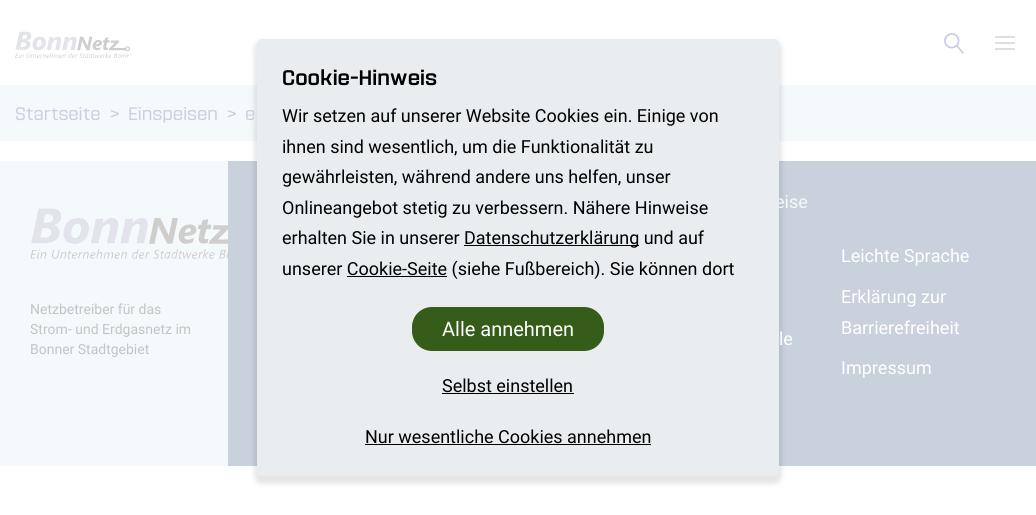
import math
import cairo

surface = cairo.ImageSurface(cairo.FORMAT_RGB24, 1036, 515)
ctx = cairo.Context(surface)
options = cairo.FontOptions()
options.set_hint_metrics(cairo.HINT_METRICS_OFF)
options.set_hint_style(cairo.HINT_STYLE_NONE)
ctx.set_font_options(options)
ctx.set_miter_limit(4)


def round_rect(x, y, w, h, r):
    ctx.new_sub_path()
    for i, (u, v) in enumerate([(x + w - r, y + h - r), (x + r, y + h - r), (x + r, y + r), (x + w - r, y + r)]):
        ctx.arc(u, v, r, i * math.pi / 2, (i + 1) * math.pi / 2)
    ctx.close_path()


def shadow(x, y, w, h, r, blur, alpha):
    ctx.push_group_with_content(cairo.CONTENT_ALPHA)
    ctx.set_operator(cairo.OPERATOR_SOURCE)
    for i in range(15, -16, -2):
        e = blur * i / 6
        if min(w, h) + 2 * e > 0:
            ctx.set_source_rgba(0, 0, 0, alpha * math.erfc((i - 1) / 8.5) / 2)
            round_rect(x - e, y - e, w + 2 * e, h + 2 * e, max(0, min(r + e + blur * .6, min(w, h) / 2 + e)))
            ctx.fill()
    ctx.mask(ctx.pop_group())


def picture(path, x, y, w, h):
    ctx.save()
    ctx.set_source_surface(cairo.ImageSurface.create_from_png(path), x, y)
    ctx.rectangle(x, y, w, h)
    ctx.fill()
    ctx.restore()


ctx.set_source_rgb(1, 1, 1)
ctx.paint()
ctx.set_source_rgb(0.957, 0.973, 0.988)
ctx.rectangle(0, 85, 1036, 56)
ctx.fill()
ctx.set_source_rgb(0.784, 0.82, 0.863)
ctx.rectangle(228, 161, 808, 305)
ctx.fill()
ctx.set_source_rgb(0, 0, 0)
shadow(254, 41, 528, 443, 8, 2.5, 0.1)
ctx.select_font_face("Roboto")
ctx.set_font_size(18)
ctx.set_source_rgb(0.957, 0.973, 0.988)
ctx.move_to(775, 208)
ctx.show_text("eise")
ctx.set_source_rgb(0.914, 0.929, 0.937)
round_rect(257, 39, 522, 437, 5)
ctx.fill()
ctx.select_font_face("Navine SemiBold")
ctx.set_font_size(21)
ctx.set_source_rgb(0, 0, 0)
ctx.move_to(282, 85)
ctx.show_text("Cookie-Hinweis")
ctx.select_font_face("Roboto")
ctx.set_font_size(18)
ctx.move_to(282, 122)
ctx.show_text("Wir setzen auf unserer Website Cookies ein. Einige von")
ctx.move_to(282, 153)
ctx.show_text("ihnen sind wesentlich, um die Funktionalität zu")
ctx.move_to(282, 183)
ctx.show_text("gewährleisten, während andere uns helfen, unser")
ctx.move_to(282, 214)
ctx.show_text("Onlineangebot stetig zu verbessern. Nähere Hinweise")
ctx.move_to(282, 244)
ctx.show_text("erhalten Sie in unserer")
ctx.rectangle(464, 245, 175, 1)
ctx.fill()
ctx.move_to(464, 244)
ctx.show_text("Datenschutzerklärung und auf")
ctx.move_to(282, 275)
ctx.show_text("unserer Cookie-Seite (siehe Fußbereich). Sie können dort")
ctx.rectangle(347, 276, 100, 1)
ctx.fill()
gradient = cairo.LinearGradient(518, 297, 518, 277)
gradient.add_color_stop_rgba(0.1, 0.914, 0.929, 0.937, 1)
gradient.add_color_stop_rgba(1, 0.914, 0.929, 0.937, 0)
ctx.set_source(gradient)
ctx.rectangle(455, 277, 142, 2)
ctx.fill()
ctx.set_source_rgb(0.208, 0.361, 0.094)
round_rect(412, 307, 192, 44, 20)
ctx.fill()
ctx.set_font_size(20)
ctx.set_source_rgb(1, 1, 1)
ctx.move_to(442, 336)
ctx.show_text("Alle annehmen")
ctx.set_font_size(18)
ctx.set_source_rgb(0, 0, 0)
ctx.move_to(442, 392)
ctx.show_text("Selbst einstellen")
ctx.rectangle(442, 393, 132, 1)
ctx.fill()
ctx.move_to(365, 443)
ctx.show_text("Nur wesentliche Cookies annehmen")
ctx.rectangle(365, 444, 286, 1)
ctx.fill()
picture("img1.png", 15, 31, 115, 27)
picture("img2.png", 944, 33, 20, 21)
ctx.set_source_rgb(0.871, 0.871, 0.871)
ctx.rectangle(995, 42, 20, 2)
ctx.fill()
ctx.rectangle(995, 36, 20, 2)
ctx.fill()
ctx.rectangle(995, 48, 20, 2)
ctx.fill()
ctx.select_font_face("Navine")
ctx.set_source_rgb(0.784, 0.82, 0.863)
ctx.move_to(15, 120)
ctx.show_text("Startseite")
ctx.move_to(110, 120)
ctx.show_text(">")
ctx.move_to(128, 120)
ctx.show_text("Einspeisen")
ctx.move_to(227, 120)
ctx.show_text(">")
ctx.move_to(245, 120)
ctx.show_text("e")
ctx.set_source_rgb(0.957, 0.973, 0.988)
ctx.rectangle(0, 161, 228, 305)
ctx.fill()
picture("img3.png", 30, 208, 198, 51)
ctx.select_font_face("Roboto")
ctx.set_font_size(14)
ctx.set_source_rgb(0.769, 0.769, 0.769)
ctx.move_to(30, 314)
ctx.show_text("Netzbetreiber für das")
ctx.move_to(30, 334)
ctx.show_text("Strom- und Erdgasnetz im")
ctx.move_to(30, 354)
ctx.show_text("Bonner Stadtgebiet")
ctx.set_font_size(18)
ctx.set_source_rgb(1, 1, 1)
ctx.move_to(779, 345)
ctx.show_text("le")
ctx.move_to(841, 262)
ctx.show_text("Leichte Sprache")
ctx.move_to(841, 303)
ctx.show_text("Erklärung zur")
ctx.move_to(841, 334)
ctx.show_text("Barrierefreiheit")
ctx.move_to(841, 374)
ctx.show_text("Impressum")
surface.write_to_png("page.png")
